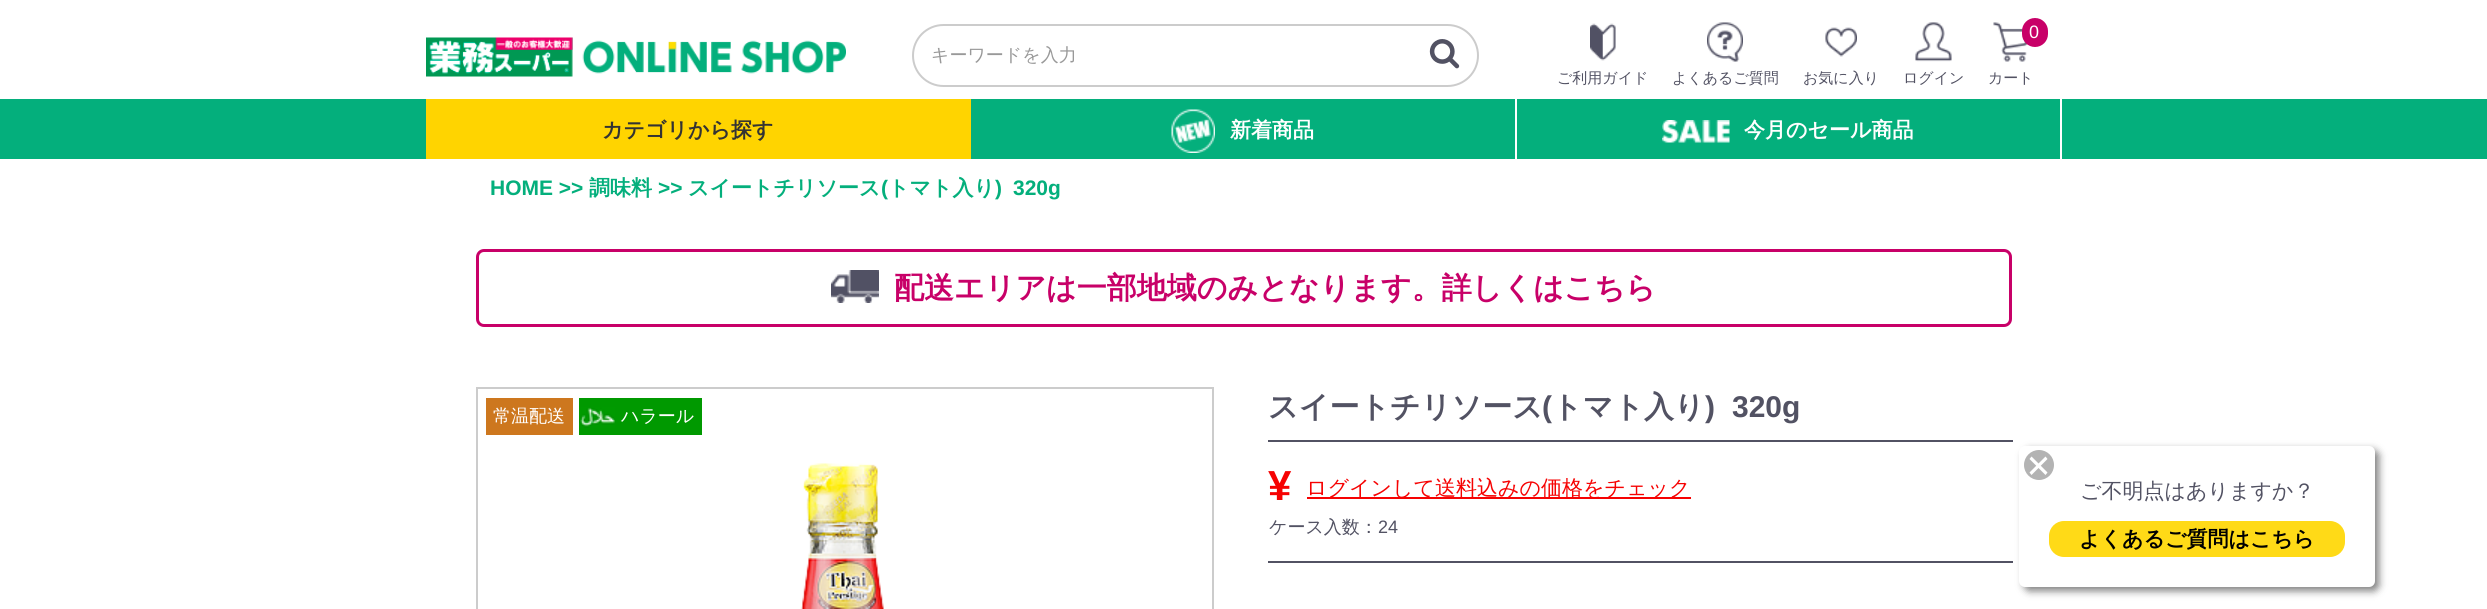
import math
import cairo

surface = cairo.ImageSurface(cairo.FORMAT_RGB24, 2487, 609)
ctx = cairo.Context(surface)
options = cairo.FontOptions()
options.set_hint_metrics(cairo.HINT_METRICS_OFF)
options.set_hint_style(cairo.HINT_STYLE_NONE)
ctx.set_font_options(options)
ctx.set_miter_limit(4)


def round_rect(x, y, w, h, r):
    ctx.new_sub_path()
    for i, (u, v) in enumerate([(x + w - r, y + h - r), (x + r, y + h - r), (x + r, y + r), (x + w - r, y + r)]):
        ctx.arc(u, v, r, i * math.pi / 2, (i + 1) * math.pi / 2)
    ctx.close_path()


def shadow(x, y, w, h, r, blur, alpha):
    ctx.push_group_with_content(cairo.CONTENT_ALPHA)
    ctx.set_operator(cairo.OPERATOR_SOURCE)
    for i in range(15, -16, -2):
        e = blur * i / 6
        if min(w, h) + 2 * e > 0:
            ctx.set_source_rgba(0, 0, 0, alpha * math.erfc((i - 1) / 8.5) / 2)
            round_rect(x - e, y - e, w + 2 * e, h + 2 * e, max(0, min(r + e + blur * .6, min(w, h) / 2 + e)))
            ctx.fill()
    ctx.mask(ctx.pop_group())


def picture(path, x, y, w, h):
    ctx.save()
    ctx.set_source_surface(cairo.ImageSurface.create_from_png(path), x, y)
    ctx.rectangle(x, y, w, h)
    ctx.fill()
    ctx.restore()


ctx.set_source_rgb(1, 1, 1)
ctx.paint()
picture("img1.png", 426, 37, 420, 40)
round_rect(913, 25, 565, 61, 30.5)
ctx.set_source_rgb(0.8, 0.8, 0.8)
ctx.stroke()
ctx.select_font_face("WenQuanYi Zen Hei Medium")
ctx.set_font_size(18)
ctx.set_source_rgb(0.6, 0.6, 0.6)
ctx.move_to(931, 61)
ctx.show_text("キーワードを入力")
picture("img2.png", 1429, 39, 31, 30)
picture("img3.png", 1590, 23, 26, 38)
ctx.set_font_size(15)
ctx.set_source_rgb(0.322, 0.322, 0.388)
ctx.move_to(1557, 83)
ctx.show_text("ご利用ガイド")
picture("img4.png", 1707, 22, 36, 40)
ctx.move_to(1672, 83)
ctx.show_text("よくあるご質問")
picture("img5.png", 1825, 27, 32, 30)
ctx.move_to(1803, 83)
ctx.show_text("お気に入り")
picture("img6.png", 1915, 22, 37, 40)
ctx.move_to(1903, 83)
ctx.show_text("ログイン")
picture("img7.png", 1993, 22, 35, 40)
ctx.set_source_rgb(0.784, 0, 0.408)
round_rect(2022, 18, 26, 29, 13)
ctx.fill()
ctx.select_font_face("Liberation Sans")
ctx.set_font_size(18)
ctx.set_source_rgb(1, 1, 1)
ctx.move_to(2029, 38)
ctx.show_text("0")
ctx.select_font_face("WenQuanYi Zen Hei Medium")
ctx.set_font_size(15)
ctx.set_source_rgb(0.322, 0.322, 0.388)
ctx.move_to(1988, 83)
ctx.show_text("カート")
ctx.set_source_rgb(0.016, 0.686, 0.486)
ctx.rectangle(0, 99, 2487, 60)
ctx.fill()
ctx.set_source_rgb(1, 0.831, 0)
ctx.rectangle(426, 99, 545, 60)
ctx.fill()
ctx.select_font_face("WenQuanYi Zen Hei", cairo.FONT_SLANT_NORMAL, cairo.FONT_WEIGHT_BOLD)
ctx.set_font_size(21)
ctx.set_source_rgb(0.2, 0.2, 0.2)
ctx.move_to(602, 137)
ctx.show_text("カテゴリから探す")
ctx.set_source_rgb(1, 1, 1)
ctx.rectangle(1515, 99, 2, 60)
ctx.fill()
picture("img8.png", 1171, 109, 44, 44)
ctx.move_to(1230, 137)
ctx.show_text("新着商品")
ctx.rectangle(2060, 99, 2, 60)
ctx.fill()
picture("img9.png", 1662, 120, 68, 23)
ctx.move_to(1744, 137)
ctx.show_text("今月のセール商品")
ctx.select_font_face("Liberation Sans", cairo.FONT_SLANT_NORMAL, cairo.FONT_WEIGHT_BOLD)
ctx.set_source_rgb(0.016, 0.686, 0.486)
ctx.move_to(490, 195)
ctx.show_text("HOME >>")
ctx.select_font_face("WenQuanYi Zen Hei", cairo.FONT_SLANT_NORMAL, cairo.FONT_WEIGHT_BOLD)
ctx.move_to(589, 195)
ctx.show_text("調味料")
ctx.select_font_face("Liberation Sans", cairo.FONT_SLANT_NORMAL, cairo.FONT_WEIGHT_BOLD)
ctx.move_to(658, 195)
ctx.show_text(">>")
ctx.select_font_face("WenQuanYi Zen Hei", cairo.FONT_SLANT_NORMAL, cairo.FONT_WEIGHT_BOLD)
ctx.move_to(688, 195)
ctx.show_text("スイートチリソース")
ctx.select_font_face("Liberation Sans", cairo.FONT_SLANT_NORMAL, cairo.FONT_WEIGHT_BOLD)
ctx.move_to(881, 195)
ctx.show_text("(")
ctx.select_font_face("WenQuanYi Zen Hei", cairo.FONT_SLANT_NORMAL, cairo.FONT_WEIGHT_BOLD)
ctx.move_to(888, 195)
ctx.show_text("トマト入り")
ctx.select_font_face("Liberation Sans", cairo.FONT_SLANT_NORMAL, cairo.FONT_WEIGHT_BOLD)
ctx.move_to(995, 195)
ctx.show_text(")")
ctx.move_to(1013, 195)
ctx.show_text("320g")
round_rect(477.5, 250.5, 1533, 75, 6.5)
ctx.set_source_rgb(0.784, 0, 0.408)
ctx.set_line_width(3)
ctx.stroke()
picture("img10.png", 831, 270, 48, 33)
ctx.select_font_face("WenQuanYi Zen Hei", cairo.FONT_SLANT_NORMAL, cairo.FONT_WEIGHT_BOLD)
ctx.set_font_size(30)
ctx.move_to(894, 298)
ctx.show_text("配送エリアは一部地域のみとなります。詳しくはこちら")
ctx.rectangle(477, 388, 736, 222)
ctx.set_source_rgb(0.8, 0.8, 0.8)
ctx.set_line_width(2)
ctx.stroke()
ctx.set_source_rgb(0.804, 0.467, 0.118)
ctx.rectangle(486, 398, 87, 37)
ctx.fill()
ctx.select_font_face("WenQuanYi Zen Hei Medium")
ctx.set_font_size(18)
ctx.set_source_rgb(1, 1, 1)
ctx.move_to(493, 422)
ctx.show_text("常温配送")
ctx.set_source_rgb(0, 0.6, 0)
ctx.rectangle(579, 398, 123, 37)
ctx.fill()
picture("img11.png", 579, 407, 36, 21)
ctx.set_source_rgb(1, 1, 1)
ctx.move_to(621, 422)
ctx.show_text("ハラール")
picture("img12.png", 800, 463, 84, 146)
ctx.select_font_face("WenQuanYi Zen Hei", cairo.FONT_SLANT_NORMAL, cairo.FONT_WEIGHT_BOLD)
ctx.set_font_size(30)
ctx.set_source_rgb(0.322, 0.322, 0.388)
ctx.move_to(1268, 417)
ctx.show_text("スイートチリソース")
ctx.select_font_face("Liberation Sans", cairo.FONT_SLANT_NORMAL, cairo.FONT_WEIGHT_BOLD)
ctx.move_to(1542, 417)
ctx.show_text("(")
ctx.select_font_face("WenQuanYi Zen Hei", cairo.FONT_SLANT_NORMAL, cairo.FONT_WEIGHT_BOLD)
ctx.move_to(1552, 417)
ctx.show_text("トマト入り")
ctx.select_font_face("Liberation Sans", cairo.FONT_SLANT_NORMAL, cairo.FONT_WEIGHT_BOLD)
ctx.move_to(1705, 417)
ctx.show_text(")")
ctx.move_to(1732, 417)
ctx.show_text("320g")
ctx.rectangle(1268, 440, 745, 2)
ctx.fill()
ctx.set_font_size(42)
ctx.set_source_rgb(0.961, 0.008, 0.008)
ctx.move_to(1268, 500)
ctx.show_text("¥")
ctx.rectangle(1307, 497, 384, 2)
ctx.fill()
ctx.select_font_face("WenQuanYi Zen Hei Medium")
ctx.set_font_size(21)
ctx.move_to(1306, 495)
ctx.show_text("ログインして送料込みの価格をチェック")
ctx.set_font_size(18)
ctx.set_source_rgb(0.322, 0.322, 0.388)
ctx.move_to(1269, 533)
ctx.show_text("ケース入数：")
ctx.select_font_face("Liberation Sans")
ctx.move_to(1378, 533)
ctx.show_text("24")
ctx.rectangle(1268, 561, 745, 2)
ctx.fill()
ctx.set_source_rgb(0, 0, 0)
shadow(2024, 450, 355, 141, 6, 4, 0.5)
ctx.set_source_rgb(1, 1, 1)
round_rect(2019, 446, 356, 141, 6)
ctx.fill()
ctx.set_source_rgb(0.702, 0.702, 0.702)
ctx.arc(2039, 465, 15, 0, 2 * math.pi)
ctx.fill()
ctx.set_source_rgb(1, 1, 1)
ctx.new_path()
ctx.move_to(2045.5, 456.5)
ctx.line_to(2047.5, 459)
ctx.line_to(2031.5, 475)
ctx.line_to(2029.5, 472.5)
ctx.close_path()
ctx.fill()
ctx.new_path()
ctx.move_to(2029.5, 459)
ctx.line_to(2031.5, 456.5)
ctx.line_to(2047.5, 472.5)
ctx.line_to(2045.5, 475)
ctx.close_path()
ctx.fill()
ctx.select_font_face("WenQuanYi Zen Hei Medium")
ctx.set_font_size(21)
ctx.set_source_rgb(0.322, 0.322, 0.388)
ctx.move_to(2080, 498)
ctx.show_text("ご不明点はありますか？")
ctx.set_source_rgb(1, 0.855, 0.09)
round_rect(2049, 521, 296, 36, 15)
ctx.fill()
ctx.select_font_face("WenQuanYi Zen Hei", cairo.FONT_SLANT_NORMAL, cairo.FONT_WEIGHT_BOLD)
ctx.set_source_rgb(0, 0, 0)
ctx.move_to(2079, 546)
ctx.show_text("よくあるご質問はこちら")
surface.write_to_png("page.png")
